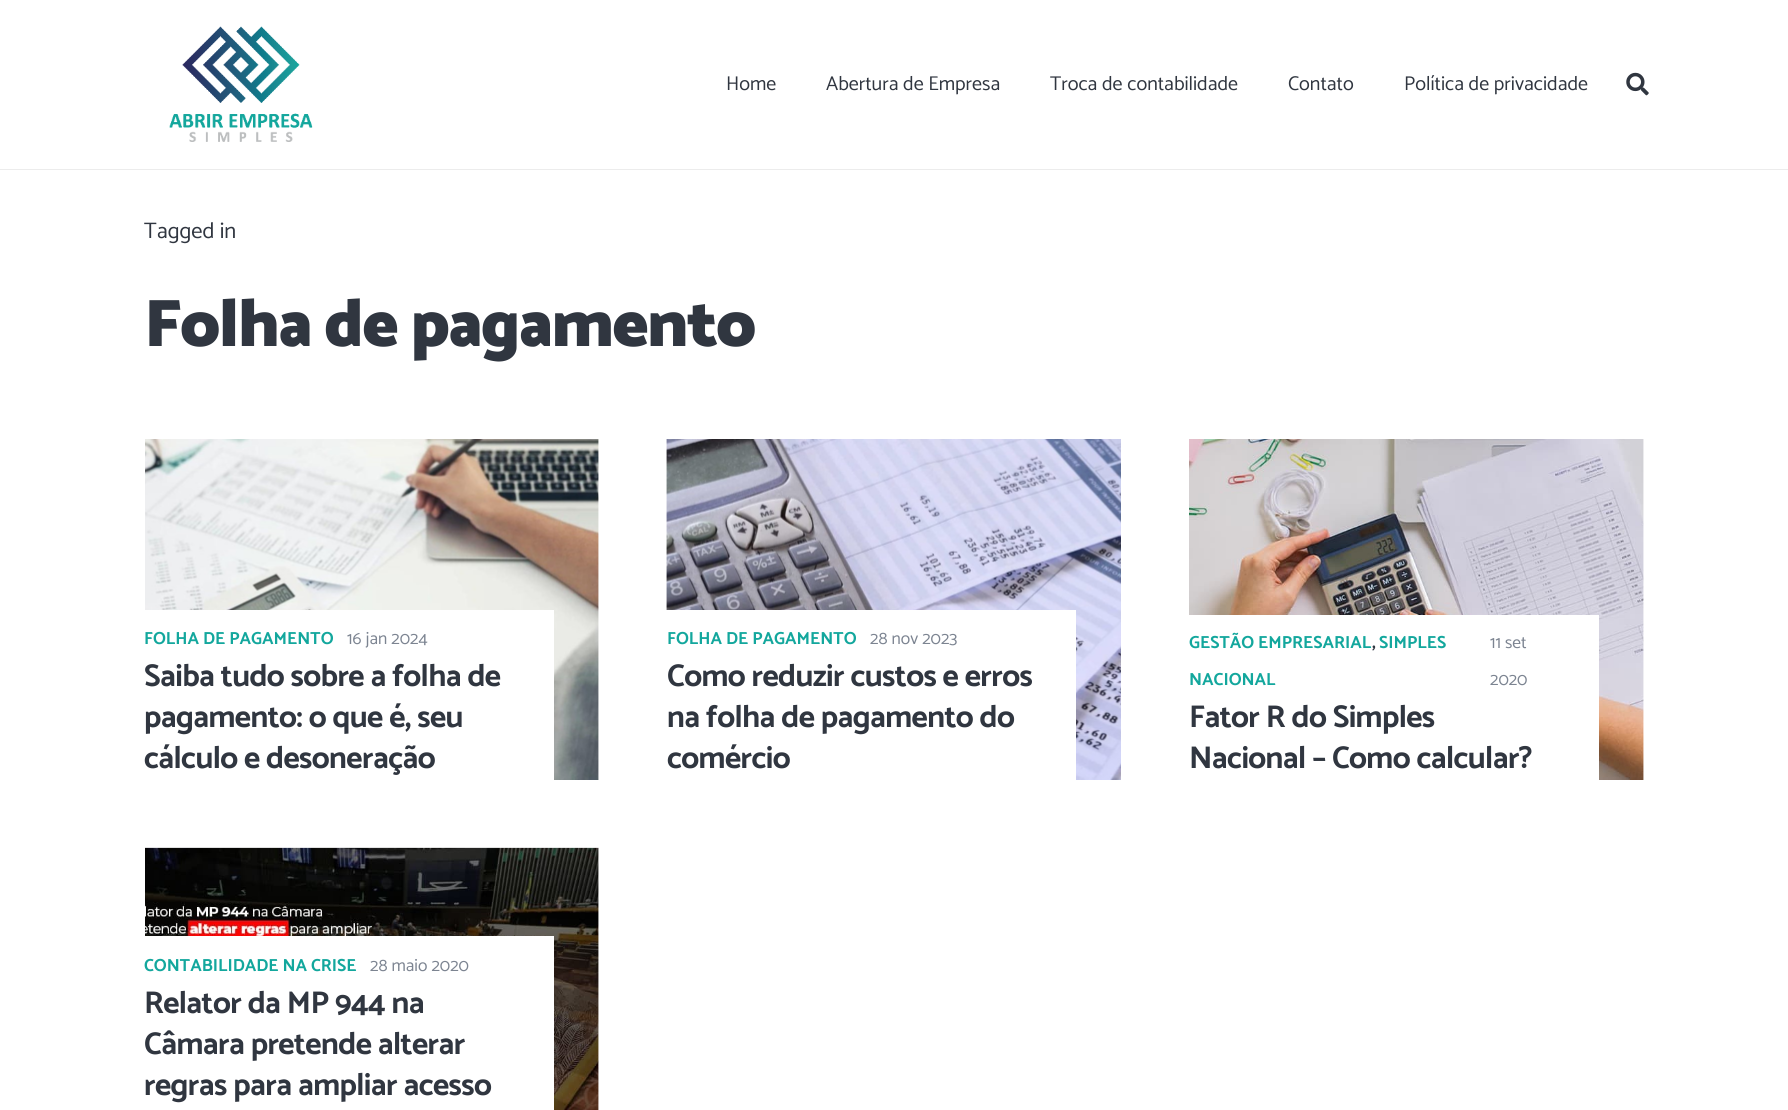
import math
import cairo

surface = cairo.ImageSurface(cairo.FORMAT_RGB24, 1788, 1110)
ctx = cairo.Context(surface)
options = cairo.FontOptions()
options.set_hint_metrics(cairo.HINT_METRICS_OFF)
options.set_hint_style(cairo.HINT_STYLE_NONE)
ctx.set_font_options(options)
ctx.set_miter_limit(4)


def spaced_text(x, y, s, letter, word):
    ctx.move_to(x, y)
    for ch in s:
        ctx.show_text(ch)
        ctx.rel_move_to(letter + word * (ch == ' '), 0)


def picture(path, x, y, w, h):
    ctx.save()
    ctx.set_source_surface(cairo.ImageSurface.create_from_png(path), x, y)
    ctx.rectangle(x, y, w, h)
    ctx.fill()
    ctx.restore()


ctx.set_source_rgb(1, 1, 1)
ctx.paint()
ctx.set_source_rgb(0.922, 0.922, 0.922)
ctx.new_path()
ctx.move_to(0, 169)
ctx.line_to(0, 170)
ctx.line_to(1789, 170)
ctx.line_to(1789, 1)
ctx.line_to(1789, 169)
ctx.close_path()
ctx.fill()
picture("img1.png", 169, 26, 144, 116)
ctx.select_font_face("Catamaran")
ctx.set_font_size(20)
ctx.set_source_rgb(0.188, 0.212, 0.251)
ctx.move_to(726, 90)
ctx.show_text("Home")
ctx.move_to(826, 90)
ctx.show_text("Abertura de Empresa")
ctx.move_to(1050, 90)
ctx.show_text("Troca de contabilidade")
ctx.move_to(1288, 90)
ctx.show_text("Contato")
ctx.move_to(1404, 90)
ctx.show_text("Política de privacidade")
picture("img2.png", 1626, 72, 23, 24)
ctx.set_font_size(22.5)
ctx.move_to(144, 238)
ctx.show_text("Tagged in")
ctx.select_font_face("Catamaran Black")
ctx.set_font_size(67.5)
spaced_text(144, 346, "Folha de pagamento", -1.4, 0)
picture("img3.png", 145, 439, 454, 341)
ctx.set_source_rgb(1, 1, 1)
ctx.rectangle(145, 610, 409, 170)
ctx.fill()
ctx.select_font_face("Catamaran", cairo.FONT_SLANT_NORMAL, cairo.FONT_WEIGHT_BOLD)
ctx.set_font_size(17.5)
ctx.set_source_rgb(0.078, 0.655, 0.616)
ctx.move_to(144, 644)
ctx.show_text("FOLHA DE PAGAMENTO")
ctx.select_font_face("Catamaran")
ctx.set_source_rgb(0.486, 0.518, 0.569)
ctx.move_to(347, 644)
ctx.show_text("16 jan 2024")
ctx.select_font_face("Catamaran", cairo.FONT_SLANT_NORMAL, cairo.FONT_WEIGHT_BOLD)
ctx.set_font_size(31.5)
ctx.set_source_rgb(0.188, 0.212, 0.251)
spaced_text(144, 686, "Saiba tudo sobre a folha de", -0.6, 0)
spaced_text(144, 727, "pagamento: o que é, seu", -0.6, 0)
spaced_text(144, 768, "cálculo e desoneração", -0.6, 0)
picture("img4.png", 666, 439, 455, 341)
ctx.set_source_rgb(1, 1, 1)
ctx.rectangle(666, 610, 410, 170)
ctx.fill()
ctx.set_font_size(17.5)
ctx.set_source_rgb(0.078, 0.655, 0.616)
ctx.move_to(667, 644)
ctx.show_text("FOLHA DE PAGAMENTO")
ctx.select_font_face("Catamaran")
ctx.set_source_rgb(0.486, 0.518, 0.569)
ctx.move_to(870, 644)
ctx.show_text("28 nov 2023")
ctx.select_font_face("Catamaran", cairo.FONT_SLANT_NORMAL, cairo.FONT_WEIGHT_BOLD)
ctx.set_font_size(31.5)
ctx.set_source_rgb(0.188, 0.212, 0.251)
spaced_text(667, 686, "Como reduzir custos e erros", -0.6, 0)
spaced_text(667, 727, "na folha de pagamento do", -0.6, 0)
spaced_text(667, 768, "comércio", -0.6, 0)
picture("img5.png", 1189, 439, 455, 341)
ctx.set_source_rgb(1, 1, 1)
ctx.rectangle(1189, 615, 410, 165)
ctx.fill()
ctx.set_font_size(17.5)
ctx.set_source_rgb(0.078, 0.655, 0.616)
ctx.move_to(1189, 648)
ctx.show_text("GESTÃO EMPRESARIAL")
ctx.set_source_rgb(0.188, 0.212, 0.251)
ctx.move_to(1372, 648)
ctx.show_text(",")
ctx.set_source_rgb(0.078, 0.655, 0.616)
ctx.move_to(1379, 648)
ctx.show_text("SIMPLES")
ctx.move_to(1189, 685)
ctx.show_text("NACIONAL")
ctx.select_font_face("Catamaran")
ctx.set_source_rgb(0.486, 0.518, 0.569)
ctx.move_to(1490, 648)
ctx.show_text("11 set")
ctx.move_to(1490, 685)
ctx.show_text("2020")
ctx.select_font_face("Catamaran", cairo.FONT_SLANT_NORMAL, cairo.FONT_WEIGHT_BOLD)
ctx.set_font_size(31.5)
ctx.set_source_rgb(0.188, 0.212, 0.251)
spaced_text(1189, 727, "Fator R do Simples", -0.6, 0)
spaced_text(1189, 768, "Nacional – Como calcular?", -0.6, 0)
picture("img6.png", 145, 847, 454, 263)
ctx.set_source_rgb(1, 1, 1)
ctx.rectangle(145, 936, 409, 174)
ctx.fill()
ctx.set_font_size(17.5)
ctx.set_source_rgb(0.078, 0.655, 0.616)
ctx.move_to(144, 971)
ctx.show_text("CONTABILIDADE NA CRISE")
ctx.select_font_face("Catamaran")
ctx.set_source_rgb(0.486, 0.518, 0.569)
ctx.move_to(370, 971)
ctx.show_text("28 maio 2020")
ctx.select_font_face("Catamaran", cairo.FONT_SLANT_NORMAL, cairo.FONT_WEIGHT_BOLD)
ctx.set_font_size(31.5)
ctx.set_source_rgb(0.188, 0.212, 0.251)
spaced_text(144, 1013, "Relator da MP 944 na", -0.6, 0)
spaced_text(144, 1054, "Câmara pretende alterar", -0.6, 0)
spaced_text(144, 1095, "regras para ampliar acesso", -0.6, 0)
surface.write_to_png("page.png")
